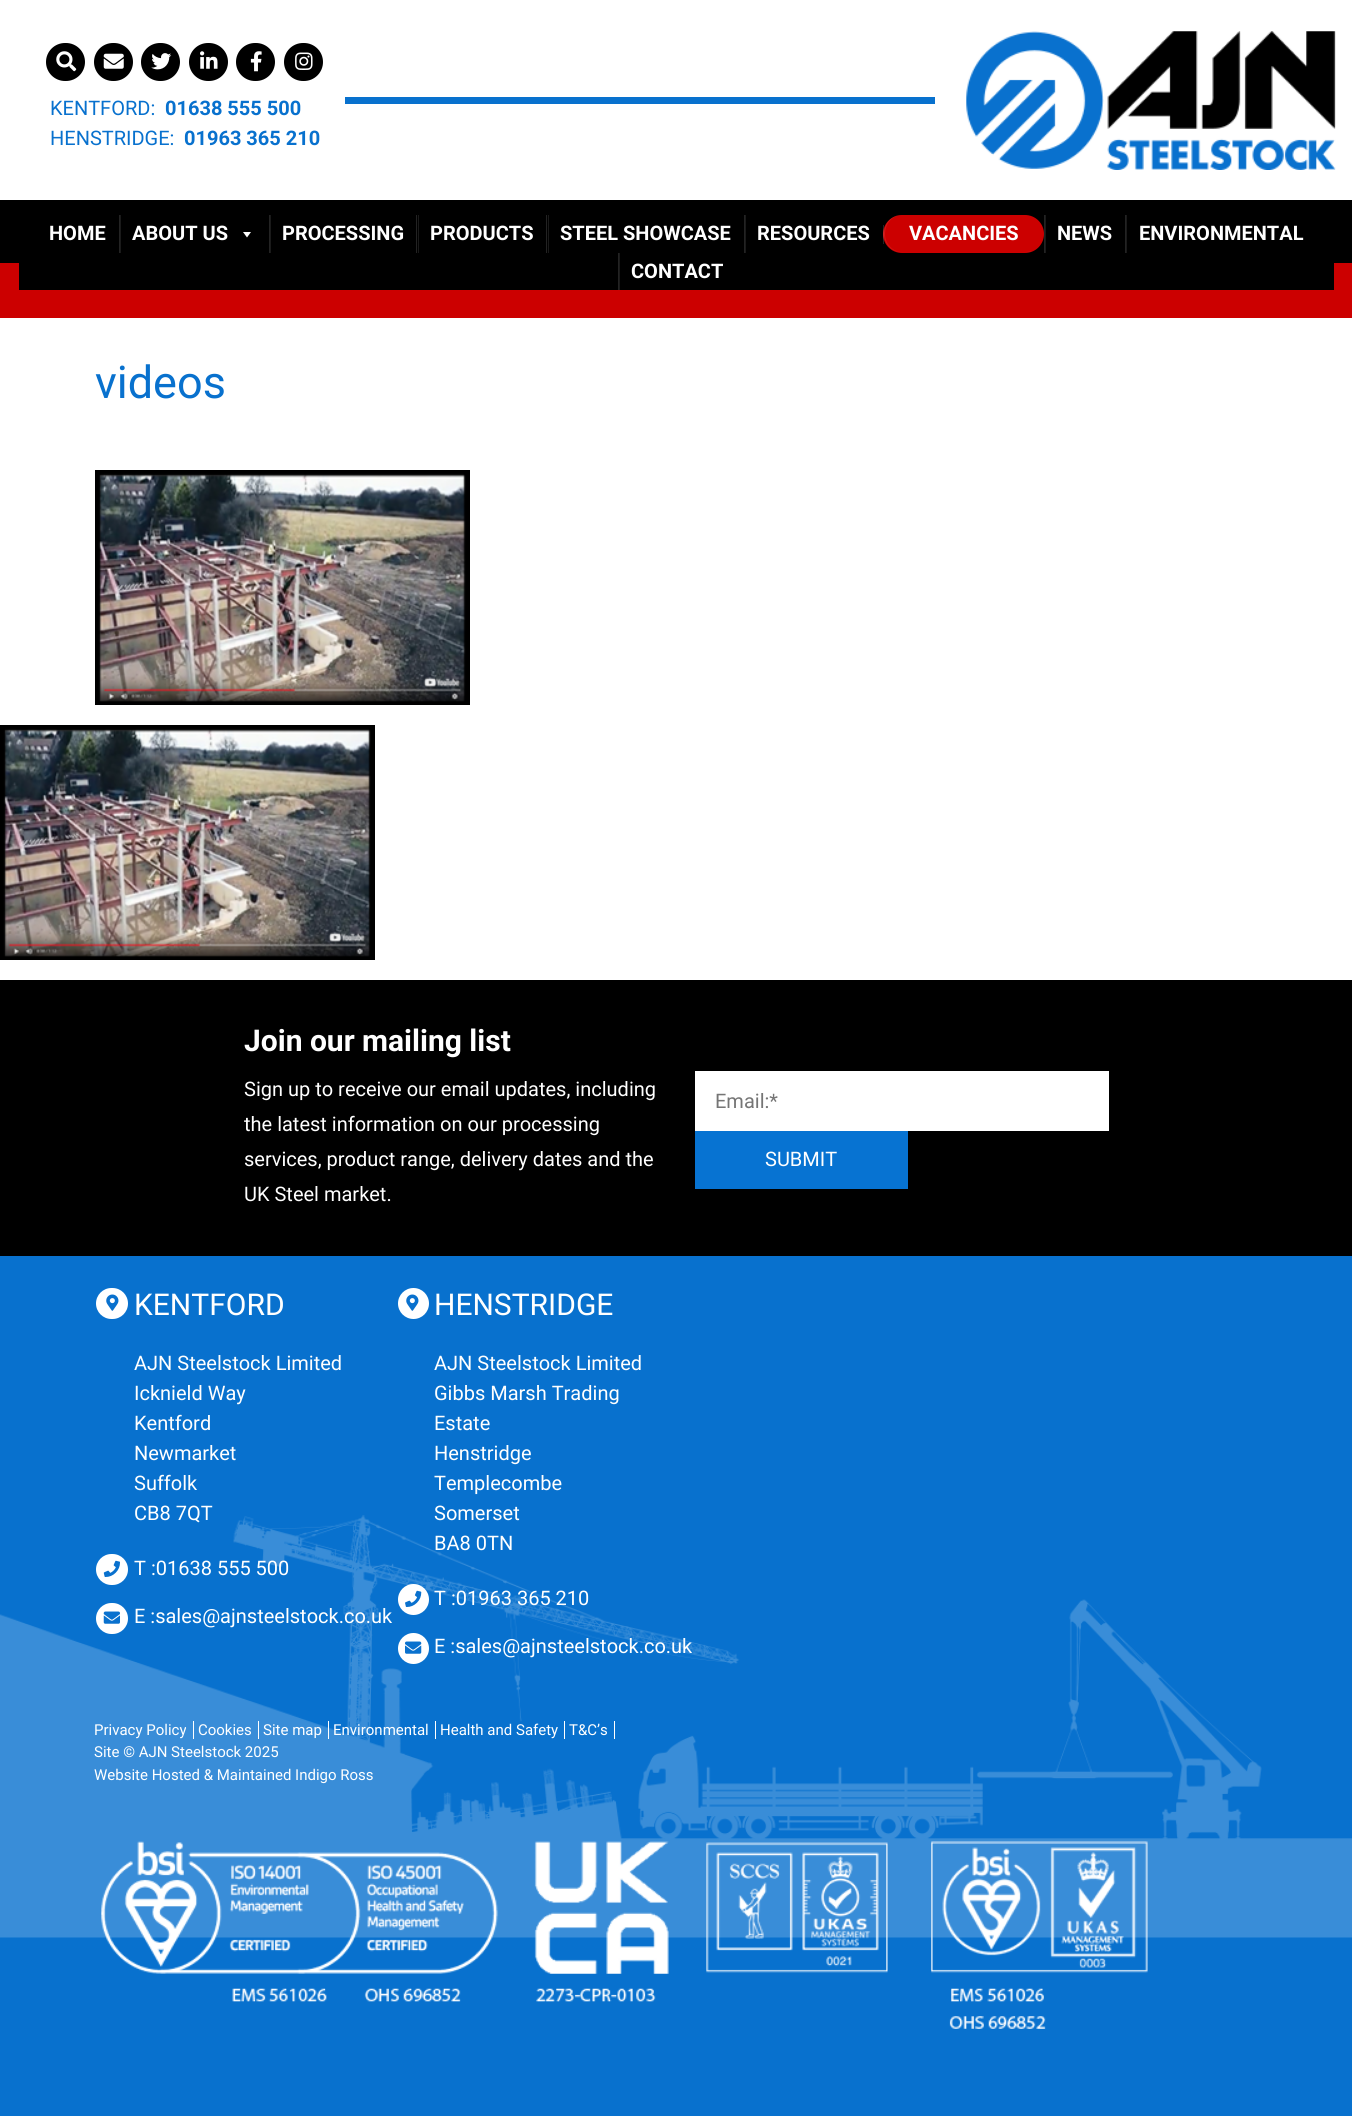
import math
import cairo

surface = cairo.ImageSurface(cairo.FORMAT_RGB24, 1352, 2117)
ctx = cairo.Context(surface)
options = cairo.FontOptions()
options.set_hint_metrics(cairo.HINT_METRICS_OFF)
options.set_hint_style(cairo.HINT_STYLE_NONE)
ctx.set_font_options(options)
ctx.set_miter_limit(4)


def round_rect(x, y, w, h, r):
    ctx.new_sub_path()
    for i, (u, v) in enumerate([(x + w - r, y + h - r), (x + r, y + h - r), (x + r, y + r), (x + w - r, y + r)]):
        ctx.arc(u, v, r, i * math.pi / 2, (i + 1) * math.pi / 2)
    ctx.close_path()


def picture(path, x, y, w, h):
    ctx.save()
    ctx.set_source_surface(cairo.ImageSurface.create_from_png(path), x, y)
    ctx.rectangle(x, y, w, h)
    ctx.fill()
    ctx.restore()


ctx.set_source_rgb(1, 1, 1)
ctx.paint()
ctx.set_source_rgb(0.035, 0.443, 0.808)
ctx.rectangle(345, 97, 590, 7)
ctx.fill()
ctx.set_source_rgb(0, 0, 0)
round_rect(46, 43, 39, 38, 19)
ctx.fill()
picture("img1.png", 56, 51, 21, 21)
round_rect(94, 43, 39, 38, 19)
ctx.fill()
picture("img2.png", 103, 53, 21, 16)
round_rect(141, 43, 39, 38, 19)
ctx.fill()
picture("img3.png", 151, 53, 21, 17)
round_rect(189, 43, 39, 38, 19)
ctx.fill()
picture("img4.png", 200, 51, 18, 18)
round_rect(236, 43, 39, 38, 19)
ctx.fill()
picture("img5.png", 250, 51, 12, 21)
round_rect(284, 43, 39, 38, 19)
ctx.fill()
picture("img6.png", 295, 52, 18, 18)
ctx.select_font_face("Roboto")
ctx.set_font_size(20)
ctx.set_source_rgb(0.035, 0.443, 0.808)
ctx.move_to(50, 115)
ctx.show_text("KENTFORD:")
ctx.select_font_face("Roboto", cairo.FONT_SLANT_NORMAL, cairo.FONT_WEIGHT_BOLD)
ctx.move_to(165, 115)
ctx.show_text("01638 555 500")
ctx.select_font_face("Roboto")
ctx.move_to(50, 145)
ctx.show_text("HENSTRIDGE:")
ctx.select_font_face("Roboto", cairo.FONT_SLANT_NORMAL, cairo.FONT_WEIGHT_BOLD)
ctx.move_to(184, 145)
ctx.show_text("01963 365 210")
picture("img7.png", 935, 31, 417, 139)
ctx.set_source_rgb(0, 0, 0)
ctx.rectangle(0, 200, 1352, 63)
ctx.fill()
ctx.set_source_rgb(0.8, 0, 0)
ctx.rectangle(0, 263, 1352, 55)
ctx.fill()
ctx.set_source_rgb(0, 0, 0)
ctx.rectangle(19, 263, 1315, 27)
ctx.fill()
ctx.set_source_rgb(1, 1, 1)
ctx.move_to(49, 240)
ctx.show_text("HOME")
ctx.set_source_rgb(0.102, 0.102, 0.102)
ctx.rectangle(120, 215, 1, 38)
ctx.fill()
ctx.set_source_rgb(0.137, 0.137, 0.137)
ctx.rectangle(119, 215, 1, 38)
ctx.fill()
ctx.set_source_rgb(1, 1, 1)
ctx.move_to(132, 240)
ctx.show_text("ABOUT US")
ctx.new_path()
ctx.move_to(251, 232)
ctx.line_to(247, 237.5)
ctx.line_to(243, 232)
ctx.close_path()
ctx.fill()
ctx.set_source_rgb(0.102, 0.102, 0.102)
ctx.rectangle(270, 215, 1, 38)
ctx.fill()
ctx.set_source_rgb(0.137, 0.137, 0.137)
ctx.rectangle(269, 215, 1, 38)
ctx.fill()
ctx.set_source_rgb(1, 1, 1)
ctx.move_to(282, 240)
ctx.show_text("PROCESSING")
ctx.set_source_rgb(0.102, 0.102, 0.102)
ctx.rectangle(418, 215, 1, 38)
ctx.fill()
ctx.set_source_rgb(0.137, 0.137, 0.137)
ctx.rectangle(416, 215, 1, 38)
ctx.fill()
ctx.set_source_rgb(1, 1, 1)
ctx.move_to(430, 240)
ctx.show_text("PRODUCTS")
ctx.set_source_rgb(0.102, 0.102, 0.102)
ctx.rectangle(548, 215, 1, 38)
ctx.fill()
ctx.set_source_rgb(0.137, 0.137, 0.137)
ctx.rectangle(546, 215, 1, 38)
ctx.fill()
ctx.set_source_rgb(1, 1, 1)
ctx.move_to(560, 240)
ctx.show_text("STEEL SHOWCASE")
ctx.set_source_rgb(0.102, 0.102, 0.102)
ctx.rectangle(745, 215, 1, 38)
ctx.fill()
ctx.set_source_rgb(0.137, 0.137, 0.137)
ctx.rectangle(744, 215, 1, 38)
ctx.fill()
ctx.set_source_rgb(1, 1, 1)
ctx.move_to(757, 240)
ctx.show_text("RESOURCES")
ctx.set_source_rgb(0.8, 0, 0)
round_rect(883, 215, 161, 38, 19)
ctx.fill()
ctx.set_source_rgba(1, 1, 1, 0.1)
ctx.new_path()
ctx.move_to(901, 215)
ctx.curve_to(892, 215, 884, 223, 884, 234)
ctx.curve_to(884, 244, 892, 252, 901, 252)
ctx.line_to(1025, 252)
ctx.curve_to(1027, 252, 1030, 252, 1032, 251)
ctx.line_to(1026, 252)
ctx.line_to(902, 252)
ctx.curve_to(893, 252, 885, 244, 885, 234)
ctx.curve_to(885, 223, 893, 215, 902, 215)
ctx.close_path()
ctx.fill()
ctx.set_source_rgba(0.882, 0.882, 0.882, 0.16)
ctx.rectangle(883, 225, 1, 19)
ctx.fill()
ctx.set_source_rgb(1, 1, 1)
ctx.move_to(909, 240)
ctx.show_text("VACANCIES")
ctx.set_source_rgb(0.102, 0.102, 0.102)
ctx.rectangle(1045, 215, 1, 38)
ctx.fill()
ctx.set_source_rgb(0.137, 0.137, 0.137)
ctx.rectangle(1044, 215, 1, 38)
ctx.fill()
ctx.set_source_rgb(1, 1, 1)
ctx.move_to(1057, 240)
ctx.show_text("NEWS")
ctx.set_source_rgb(0.102, 0.102, 0.102)
ctx.rectangle(1126, 215, 1, 38)
ctx.fill()
ctx.set_source_rgb(0.137, 0.137, 0.137)
ctx.rectangle(1125, 215, 1, 38)
ctx.fill()
ctx.set_source_rgb(1, 1, 1)
ctx.move_to(1139, 240)
ctx.show_text("ENVIRONMENTAL")
ctx.set_source_rgb(0.102, 0.102, 0.102)
ctx.rectangle(619, 253, 1, 37)
ctx.fill()
ctx.set_source_rgb(0.137, 0.137, 0.137)
ctx.rectangle(618, 253, 1, 37)
ctx.fill()
ctx.set_source_rgb(1, 1, 1)
ctx.move_to(631, 278)
ctx.show_text("CONTACT")
ctx.select_font_face("Roboto")
ctx.set_font_size(45)
ctx.set_source_rgb(0.035, 0.443, 0.808)
ctx.move_to(95, 398)
ctx.show_text("videos")
picture("img8.png", 95, 470, 375, 235)
picture("img9.png", 0, 725, 375, 235)
ctx.set_source_rgb(0, 0, 0)
ctx.rectangle(0, 980, 1352, 276)
ctx.fill()
ctx.select_font_face("Roboto", cairo.FONT_SLANT_NORMAL, cairo.FONT_WEIGHT_BOLD)
ctx.set_font_size(30)
ctx.set_source_rgb(1, 1, 1)
ctx.move_to(244, 1051)
ctx.show_text("Join our mailing list")
ctx.select_font_face("Roboto")
ctx.set_font_size(20)
ctx.move_to(244, 1096)
ctx.show_text("Sign up to receive our email updates, including")
ctx.move_to(244, 1131)
ctx.show_text("the latest information on our processing")
ctx.move_to(244, 1166)
ctx.show_text("services, product range, delivery dates and the")
ctx.move_to(244, 1201)
ctx.show_text("UK Steel market.")
ctx.rectangle(695, 1071, 414, 60)
ctx.fill()
ctx.set_source_rgb(0.459, 0.459, 0.459)
ctx.move_to(715, 1108)
ctx.show_text("Email:*")
ctx.set_source_rgb(0.031, 0.451, 0.824)
ctx.rectangle(695, 1131, 213, 58)
ctx.fill()
ctx.set_source_rgb(1, 1, 1)
ctx.move_to(765, 1166)
ctx.show_text("SUBMIT")
ctx.set_source_rgb(0.035, 0.443, 0.808)
ctx.rectangle(0, 1256, 1352, 860)
ctx.fill()
picture("img10.png", 0, 1515, 1352, 423)
ctx.set_source_rgb(1, 1, 1)
round_rect(96, 1288, 32, 31, 15.5)
ctx.fill()
picture("img11.png", 106, 1294, 13, 17)
ctx.set_font_size(30)
ctx.move_to(134, 1315)
ctx.show_text("KENTFORD")
ctx.set_font_size(20)
ctx.move_to(134, 1370)
ctx.show_text("AJN Steelstock Limited")
ctx.move_to(134, 1400)
ctx.show_text("Icknield Way")
ctx.move_to(134, 1430)
ctx.show_text("Kentford")
ctx.move_to(134, 1460)
ctx.show_text("Newmarket")
ctx.move_to(134, 1490)
ctx.show_text("Suffolk")
ctx.move_to(134, 1520)
ctx.show_text("CB8 7QT")
round_rect(96, 1554, 32, 31, 15.5)
ctx.fill()
picture("img12.png", 103, 1560, 17, 17)
ctx.move_to(134, 1575)
ctx.show_text("T :01638 555 500")
round_rect(96, 1603, 32, 31, 15.5)
ctx.fill()
picture("img13.png", 103, 1611, 17, 13)
ctx.move_to(134, 1623)
ctx.show_text("E :sales@ajnsteelstock.co.uk")
ctx.new_path()
ctx.arc(413.5, 1303.5, 15.5, 0, 2 * math.pi)
ctx.fill()
picture("img11.png", 406, 1294, 13, 17)
ctx.set_font_size(30)
ctx.move_to(434, 1315)
ctx.show_text("HENSTRIDGE")
ctx.set_font_size(20)
ctx.move_to(434, 1370)
ctx.show_text("AJN Steelstock Limited")
ctx.move_to(434, 1400)
ctx.show_text("Gibbs Marsh Trading")
ctx.move_to(434, 1430)
ctx.show_text("Estate")
ctx.move_to(434, 1460)
ctx.show_text("Henstridge")
ctx.move_to(434, 1490)
ctx.show_text("Templecombe")
ctx.move_to(434, 1520)
ctx.show_text("Somerset")
ctx.move_to(434, 1550)
ctx.show_text("BA8 0TN")
ctx.new_path()
ctx.arc(413.5, 1599.5, 15.5, 0, 2 * math.pi)
ctx.fill()
picture("img14.png", 405, 1590, 17, 17)
ctx.move_to(434, 1605)
ctx.show_text("T :01963 365 210")
ctx.new_path()
ctx.arc(413.5, 1648.5, 15.5, 0, 2 * math.pi)
ctx.fill()
picture("img15.png", 405, 1641, 17, 13)
ctx.move_to(434, 1653)
ctx.show_text("E :sales@ajnsteelstock.co.uk")
ctx.set_font_size(15)
ctx.move_to(94, 1735)
ctx.show_text("Privacy Policy")
ctx.rectangle(193, 1721, 1, 18)
ctx.fill()
ctx.move_to(198, 1735)
ctx.show_text("Cookies")
ctx.rectangle(258, 1721, 1, 18)
ctx.fill()
ctx.move_to(263, 1735)
ctx.show_text("Site map")
ctx.rectangle(328, 1721, 1, 18)
ctx.fill()
ctx.move_to(333, 1735)
ctx.show_text("Environmental")
ctx.rectangle(435, 1721, 1, 18)
ctx.fill()
ctx.move_to(440, 1735)
ctx.show_text("Health and Safety")
ctx.rectangle(564, 1721, 1, 18)
ctx.fill()
ctx.move_to(569, 1735)
ctx.show_text("T&C’s")
ctx.rectangle(614, 1721, 1, 18)
ctx.fill()
ctx.move_to(94, 1757)
ctx.show_text("Site © AJN Steelstock 2025")
ctx.move_to(94, 1780)
ctx.show_text("Website Hosted & Maintained Indigo Ross")
picture("img16.png", 101, 1841, 1047, 188)
surface.write_to_png("page.png")
